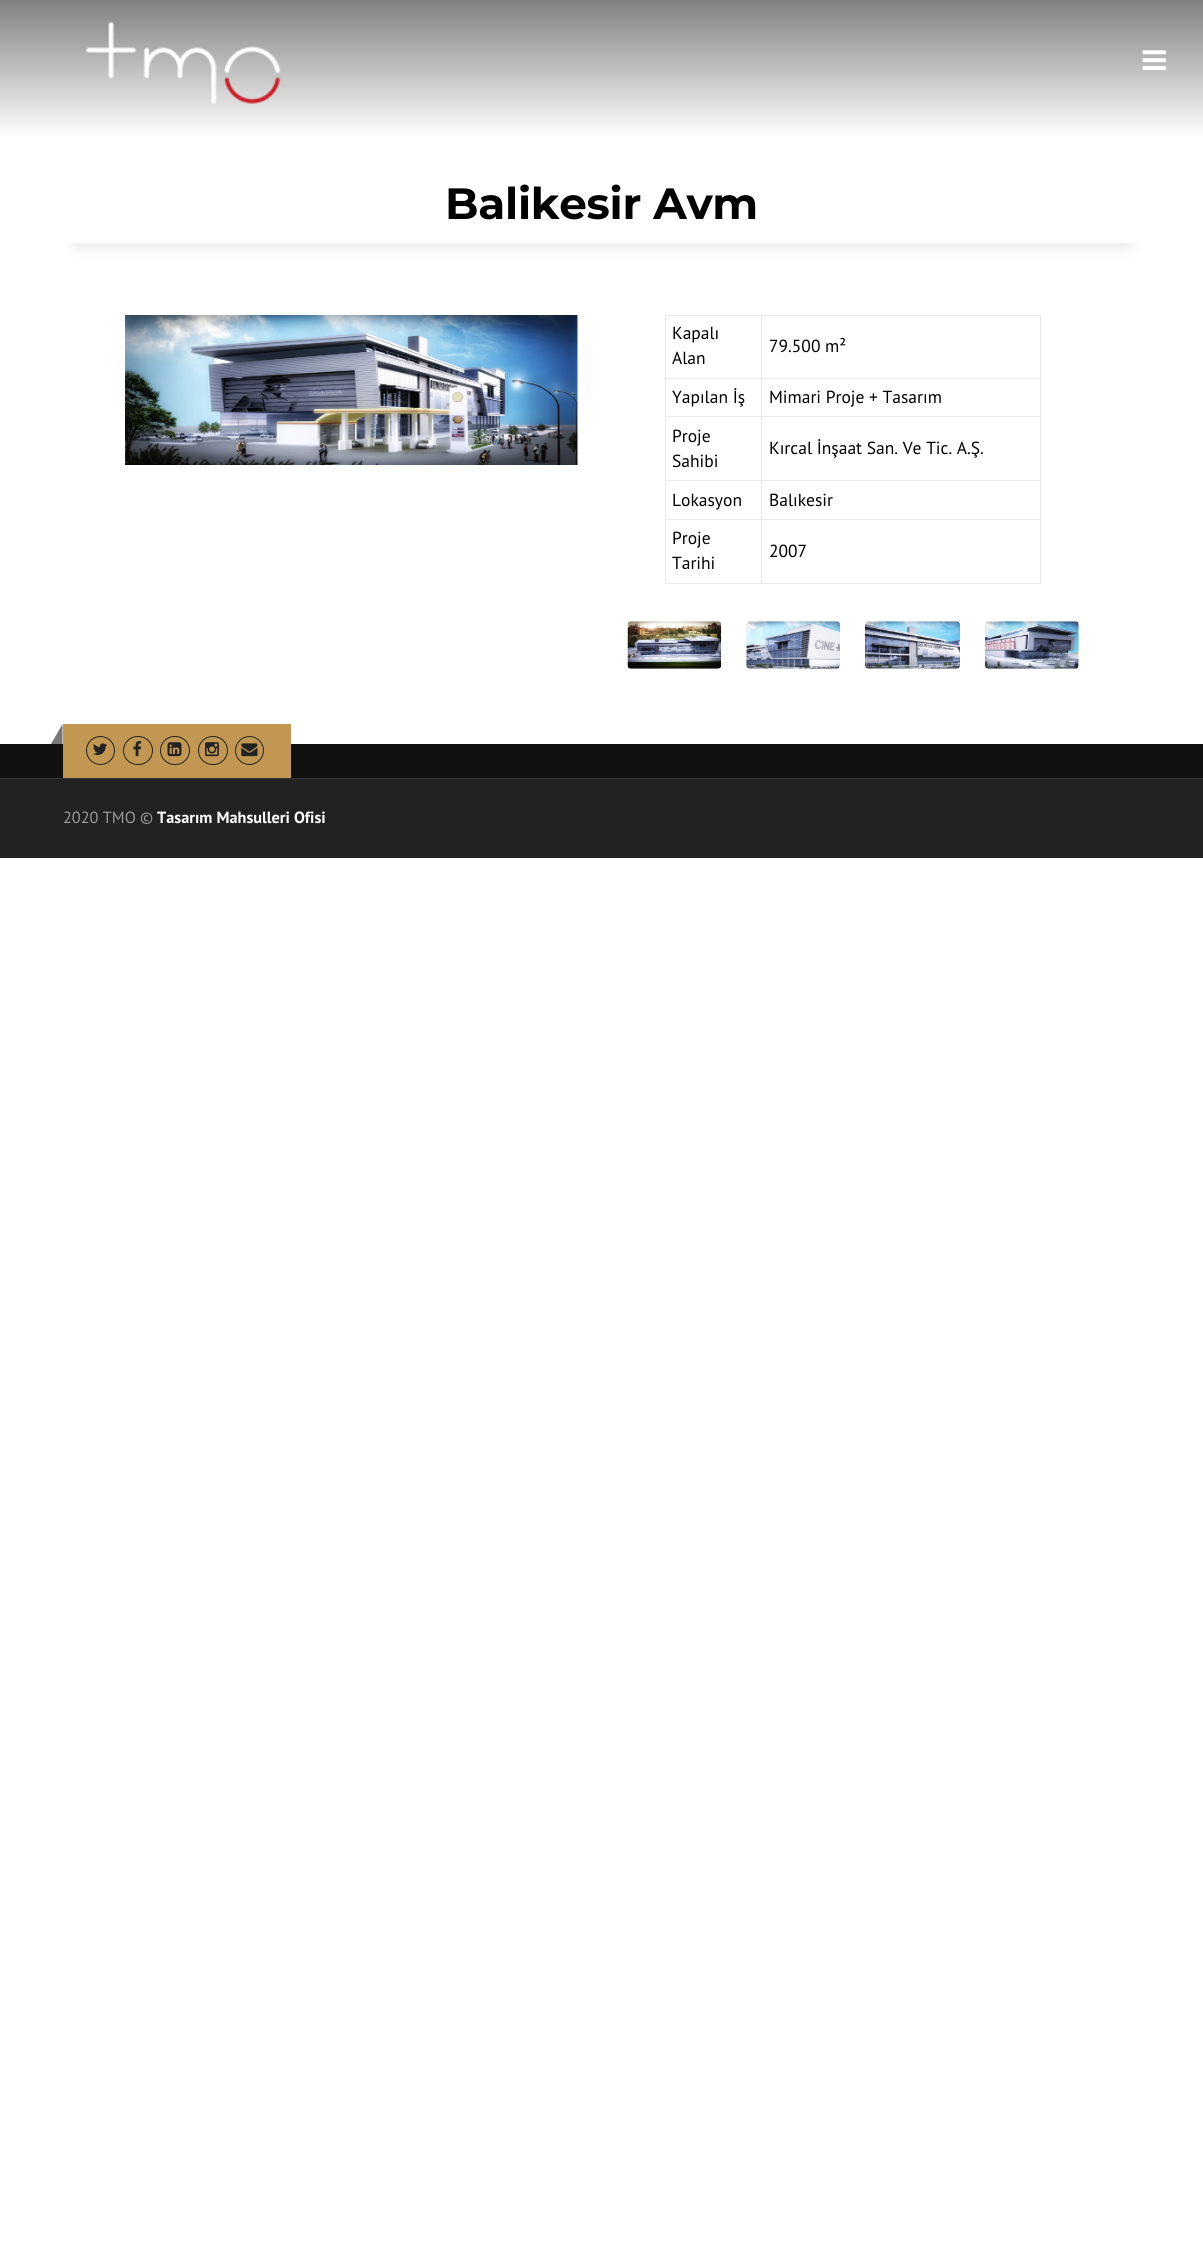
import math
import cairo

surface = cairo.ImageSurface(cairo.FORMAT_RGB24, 1203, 2253)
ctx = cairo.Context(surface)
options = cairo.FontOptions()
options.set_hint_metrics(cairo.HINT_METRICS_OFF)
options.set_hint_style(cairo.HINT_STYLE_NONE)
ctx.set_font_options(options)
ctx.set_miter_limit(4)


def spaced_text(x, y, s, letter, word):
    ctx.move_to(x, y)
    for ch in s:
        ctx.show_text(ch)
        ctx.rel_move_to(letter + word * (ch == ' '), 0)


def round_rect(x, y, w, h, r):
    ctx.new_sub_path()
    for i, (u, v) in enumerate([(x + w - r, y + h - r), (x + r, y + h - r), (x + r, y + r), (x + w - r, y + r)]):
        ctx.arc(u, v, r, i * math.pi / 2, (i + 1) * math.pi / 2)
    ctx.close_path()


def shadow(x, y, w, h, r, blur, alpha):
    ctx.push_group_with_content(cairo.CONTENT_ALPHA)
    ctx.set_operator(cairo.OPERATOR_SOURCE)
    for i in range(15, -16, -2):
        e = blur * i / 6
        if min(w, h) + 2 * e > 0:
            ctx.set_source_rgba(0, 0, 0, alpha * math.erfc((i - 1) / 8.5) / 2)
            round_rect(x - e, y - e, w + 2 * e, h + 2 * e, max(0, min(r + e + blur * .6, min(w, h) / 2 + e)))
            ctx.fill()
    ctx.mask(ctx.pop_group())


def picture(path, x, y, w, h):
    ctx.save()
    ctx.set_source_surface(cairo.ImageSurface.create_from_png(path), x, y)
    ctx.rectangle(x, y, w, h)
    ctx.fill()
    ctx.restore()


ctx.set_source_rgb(1, 1, 1)
ctx.paint()
gradient = cairo.LinearGradient(602, 0, 602, 146)
gradient.add_color_stop_rgba(0, 0.502, 0.502, 0.502, 1)
gradient.add_color_stop_rgba(0.95, 1, 1, 1, 1)
ctx.set_source(gradient)
ctx.rectangle(0, 0, 1203, 136)
ctx.fill()
picture("img1.png", 86, 22, 195, 82)
picture("img2.png", 1142, 50, 25, 20)
ctx.select_font_face("Montserrat", cairo.FONT_SLANT_NORMAL, cairo.FONT_WEIGHT_BOLD)
ctx.set_font_size(43.75)
ctx.set_source_rgb(0, 0, 0)
spaced_text(445, 219, "Balikesir Avm", -0.25, 0)
ctx.save()
ctx.rectangle(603, 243, 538, 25)
ctx.clip()
ctx.set_source_rgb(0.922, 0.922, 0.922)
shadow(44, 224, 1091, 25, 12.5, 6, 1)
ctx.restore()
ctx.save()
ctx.rectangle(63, 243, 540, 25)
ctx.clip()
ctx.set_source_rgb(0.922, 0.922, 0.922)
shadow(69, 224, 1091, 25, 12.5, 6, 1)
ctx.restore()
picture("img3.png", 125, 315, 453, 150)
ctx.set_source_rgb(0.914, 0.914, 0.914)
ctx.rectangle(665, 315, 376, 1)
ctx.fill()
ctx.rectangle(1040, 315, 1, 269)
ctx.fill()
ctx.rectangle(665, 583, 376, 1)
ctx.fill()
ctx.rectangle(665, 315, 1, 269)
ctx.fill()
ctx.select_font_face("PT Sans")
ctx.set_font_size(17.5)
ctx.set_source_rgb(0, 0, 0)
ctx.move_to(672, 339)
ctx.show_text("Kapalı")
ctx.move_to(672, 364)
ctx.show_text("Alan")
ctx.set_source_rgb(0.914, 0.914, 0.914)
ctx.rectangle(761, 378, 280, 1)
ctx.fill()
ctx.rectangle(761, 416, 280, 1)
ctx.fill()
ctx.rectangle(761, 480, 280, 1)
ctx.fill()
ctx.rectangle(761, 519, 280, 1)
ctx.fill()
ctx.rectangle(761, 519, 1, 65)
ctx.fill()
ctx.rectangle(665, 519, 98, 1)
ctx.fill()
ctx.rectangle(761, 480, 1, 40)
ctx.fill()
ctx.rectangle(665, 480, 98, 1)
ctx.fill()
ctx.rectangle(761, 416, 1, 65)
ctx.fill()
ctx.rectangle(665, 416, 98, 1)
ctx.fill()
ctx.rectangle(761, 378, 1, 40)
ctx.fill()
ctx.rectangle(665, 378, 98, 1)
ctx.fill()
ctx.rectangle(761, 315, 1, 64)
ctx.fill()
ctx.set_source_rgb(0, 0, 0)
ctx.move_to(769, 352)
ctx.show_text("79.500 m²")
ctx.move_to(672, 403)
ctx.show_text("Yapılan İş")
ctx.move_to(769, 403)
ctx.show_text("Mimari Proje + Tasarım")
ctx.move_to(672, 442)
ctx.show_text("Proje")
ctx.move_to(672, 467)
ctx.show_text("Sahibi")
ctx.move_to(769, 454)
ctx.show_text("Kırcal İnşaat San. Ve Tic. A.Ş.")
ctx.move_to(672, 506)
ctx.show_text("Lokasyon")
ctx.move_to(769, 506)
ctx.show_text("Balıkesir")
ctx.move_to(672, 544)
ctx.show_text("Proje")
ctx.move_to(672, 569)
ctx.show_text("Tarihi")
ctx.move_to(769, 557)
ctx.show_text("2007")
picture("img4.png", 627, 621, 95, 48)
picture("img5.png", 746, 621, 94, 48)
picture("img6.png", 865, 621, 95, 48)
picture("img7.png", 985, 621, 94, 48)
ctx.set_source_rgb(0.067, 0.067, 0.067)
ctx.rectangle(0, 744, 1203, 34)
ctx.fill()
ctx.set_source_rgb(0.761, 0.592, 0.322)
ctx.rectangle(63, 724, 228, 54)
ctx.fill()
ctx.set_source_rgb(0.467, 0.467, 0.467)
ctx.new_path()
ctx.move_to(62.5, 724)
ctx.line_to(62.5, 744)
ctx.line_to(51, 744)
ctx.close_path()
ctx.fill()
ctx.arc(100.5, 750.5, 14, 0, 2 * math.pi)
ctx.set_source_rgb(0.133, 0.133, 0.133)
ctx.set_line_width(1)
ctx.stroke()
picture("img8.png", 93, 743, 14, 12)
round_rect(123.5, 736.5, 29, 28, 14)
ctx.stroke()
picture("img9.png", 133, 741, 9, 16)
round_rect(160.5, 736.5, 29, 28, 14)
ctx.stroke()
picture("img10.png", 167, 742, 15, 15)
round_rect(198.5, 736.5, 29, 28, 14)
ctx.stroke()
picture("img11.png", 205, 742, 14, 15)
ctx.arc(249.5, 750.5, 14, 0, 2 * math.pi)
ctx.stroke()
picture("img12.png", 241, 743, 17, 14)
ctx.rectangle(0, 779, 1203, 79)
ctx.fill()
ctx.set_source_rgb(0.2, 0.2, 0.2)
ctx.rectangle(0, 778, 1203, 1)
ctx.fill()
ctx.set_font_size(16.25)
ctx.set_source_rgb(0.6, 0.6, 0.6)
ctx.move_to(63, 823)
ctx.show_text("2020 TMO ©")
ctx.select_font_face("PT Sans", cairo.FONT_SLANT_NORMAL, cairo.FONT_WEIGHT_BOLD)
ctx.set_source_rgb(1, 1, 1)
ctx.move_to(157, 823)
ctx.show_text("Tasarım Mahsulleri Ofisi")
surface.write_to_png("page.png")
